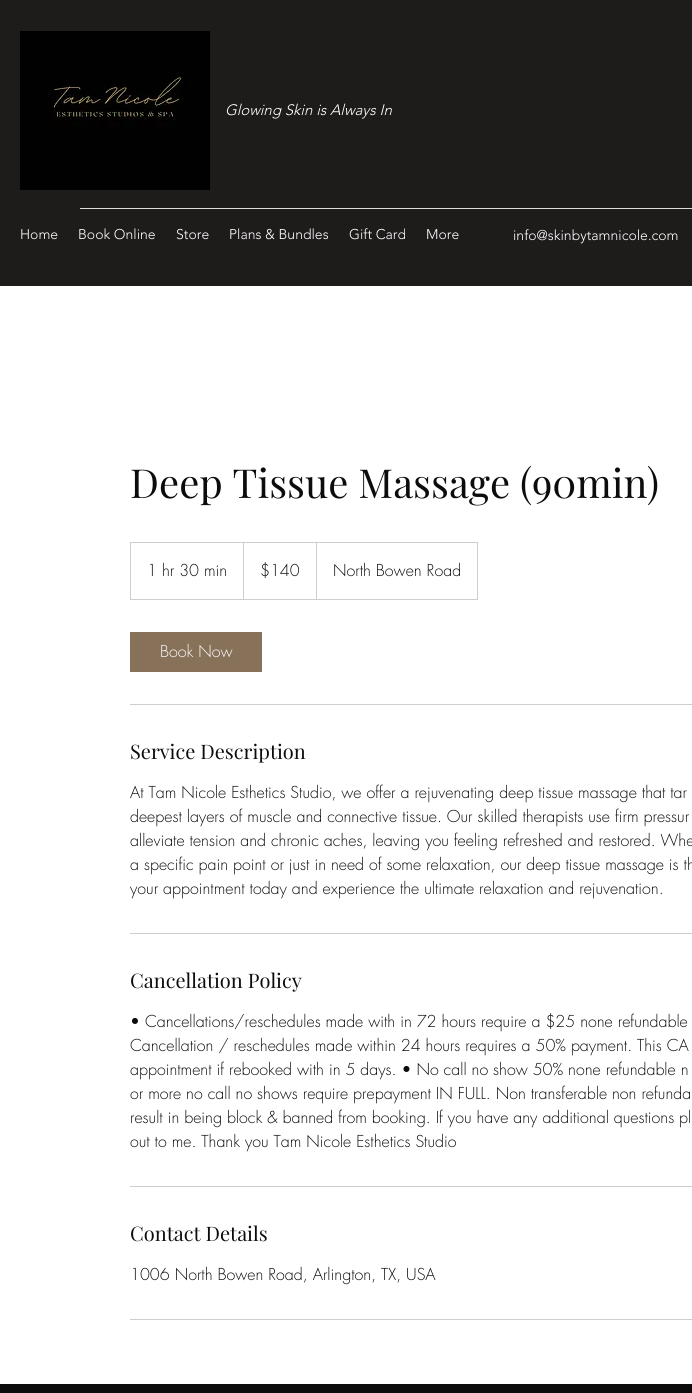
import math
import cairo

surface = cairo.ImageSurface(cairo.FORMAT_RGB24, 692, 1393)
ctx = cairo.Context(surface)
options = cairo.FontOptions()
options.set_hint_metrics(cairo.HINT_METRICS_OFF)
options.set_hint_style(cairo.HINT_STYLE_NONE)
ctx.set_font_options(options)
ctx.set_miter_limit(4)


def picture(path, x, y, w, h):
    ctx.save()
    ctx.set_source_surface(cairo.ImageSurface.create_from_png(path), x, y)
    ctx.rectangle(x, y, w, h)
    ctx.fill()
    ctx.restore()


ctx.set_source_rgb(1, 1, 1)
ctx.paint()
ctx.set_source_rgb(0.118, 0.106, 0.106)
ctx.rectangle(0, 0, 692, 286)
ctx.fill()
picture("img1.png", 20, 31, 190, 159)
ctx.select_font_face("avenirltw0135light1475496 Light", cairo.FONT_SLANT_ITALIC)
ctx.set_font_size(15)
ctx.set_source_rgb(1, 1, 1)
ctx.move_to(225, 115)
ctx.show_text("Glowing Skin is Always In")
ctx.set_source_rgb(0.867, 0.867, 0.867)
ctx.rectangle(80, 208, 612, 1)
ctx.fill()
ctx.select_font_face("avenirltw0135light1475496 Light")
ctx.set_font_size(14)
ctx.set_source_rgb(1, 1, 1)
ctx.move_to(20, 239)
ctx.show_text("Home")
ctx.move_to(78, 239)
ctx.show_text("Book Online")
ctx.move_to(176, 239)
ctx.show_text("Store")
ctx.move_to(229, 239)
ctx.show_text("Plans & Bundles")
ctx.move_to(349, 239)
ctx.show_text("Gift Card")
ctx.move_to(426, 239)
ctx.show_text("More")
ctx.move_to(513, 240)
ctx.show_text("info@skinbytamnicole.com")
ctx.select_font_face("Playfair Display")
ctx.set_font_size(40)
ctx.set_source_rgb(0.051, 0.047, 0.047)
ctx.move_to(130, 498)
ctx.show_text("Deep Tissue Massage (90min)")
ctx.rectangle(130.5, 542.5, 347, 57)
ctx.set_source_rgb(0.812, 0.808, 0.808)
ctx.set_line_width(1)
ctx.stroke()
ctx.select_font_face("futura Light")
ctx.set_font_size(16)
ctx.set_source_rgb(0.051, 0.047, 0.047)
ctx.move_to(147, 576)
ctx.show_text("1 hr 30 min")
ctx.set_source_rgb(0.812, 0.808, 0.808)
ctx.new_path()
ctx.move_to(243, 599)
ctx.line_to(243, 542)
ctx.line_to(244, 543)
ctx.line_to(244, 599)
ctx.close_path()
ctx.fill()
ctx.set_source_rgb(0.051, 0.047, 0.047)
ctx.move_to(260, 576)
ctx.show_text("$140")
ctx.set_source_rgb(0.812, 0.808, 0.808)
ctx.new_path()
ctx.move_to(316, 599)
ctx.line_to(316, 542)
ctx.line_to(317, 543)
ctx.line_to(317, 599)
ctx.close_path()
ctx.fill()
ctx.set_source_rgb(0.051, 0.047, 0.047)
ctx.move_to(333, 576)
ctx.show_text("North Bowen Road")
ctx.set_source_rgb(0.533, 0.443, 0.349)
ctx.rectangle(130, 632, 132, 40)
ctx.fill()
ctx.set_source_rgb(1, 1, 1)
ctx.move_to(160, 657)
ctx.show_text("Book Now")
ctx.set_source_rgb(0.812, 0.808, 0.808)
ctx.rectangle(130, 704, 562, 1)
ctx.fill()
ctx.select_font_face("Playfair Display")
ctx.set_font_size(20)
ctx.set_source_rgb(0.051, 0.047, 0.047)
ctx.move_to(130, 759)
ctx.show_text("Service Description")
ctx.select_font_face("futura Light")
ctx.set_font_size(16)
ctx.move_to(130, 798)
ctx.show_text("At Tam Nicole Esthetics Studio, we offer a rejuvenating deep tissue massage that tar")
ctx.move_to(130, 822)
ctx.show_text("deepest layers of muscle and connective tissue. Our skilled therapists use firm pressur")
ctx.move_to(130, 846)
ctx.show_text("alleviate tension and chronic aches, leaving you feeling refreshed and restored. Whe")
ctx.move_to(130, 870)
ctx.show_text("a specific pain point or just in need of some relaxation, our deep tissue massage is th")
ctx.move_to(130, 894)
ctx.show_text("your appointment today and experience the ultimate relaxation and rejuvenation.")
ctx.set_source_rgb(0.812, 0.808, 0.808)
ctx.rectangle(130, 933, 562, 1)
ctx.fill()
ctx.select_font_face("Playfair Display")
ctx.set_font_size(20)
ctx.set_source_rgb(0.051, 0.047, 0.047)
ctx.move_to(130, 988)
ctx.show_text("Cancellation Policy")
ctx.select_font_face("futura Light")
ctx.set_font_size(16)
ctx.move_to(130, 1027)
ctx.show_text("• Cancellations/reschedules made with in 72 hours require a $25 none refundable")
ctx.move_to(130, 1051)
ctx.show_text("Cancellation / reschedules made within 24 hours requires a 50% payment. This CA")
ctx.move_to(130, 1075)
ctx.show_text("appointment if rebooked with in 5 days. • No call no show 50% none refundable n")
ctx.move_to(130, 1099)
ctx.show_text("or more no call no shows require prepayment IN FULL. Non transferable non refunda")
ctx.move_to(130, 1123)
ctx.show_text("result in being block & banned from booking. If you have any additional questions pl")
ctx.move_to(130, 1147)
ctx.show_text("out to me. Thank you Tam Nicole Esthetics Studio")
ctx.set_source_rgb(0.812, 0.808, 0.808)
ctx.rectangle(130, 1186, 562, 1)
ctx.fill()
ctx.select_font_face("Playfair Display")
ctx.set_font_size(20)
ctx.set_source_rgb(0.051, 0.047, 0.047)
ctx.move_to(130, 1241)
ctx.show_text("Contact Details")
ctx.select_font_face("futura Light")
ctx.set_font_size(16)
ctx.move_to(130, 1280)
ctx.show_text("1006 North Bowen Road, Arlington, TX, USA")
ctx.set_source_rgb(0.812, 0.808, 0.808)
ctx.rectangle(130, 1319, 562, 1)
ctx.fill()
ctx.set_source_rgb(0.051, 0.047, 0.047)
ctx.rectangle(0, 1384, 692, 9)
ctx.fill()
surface.write_to_png("page.png")
